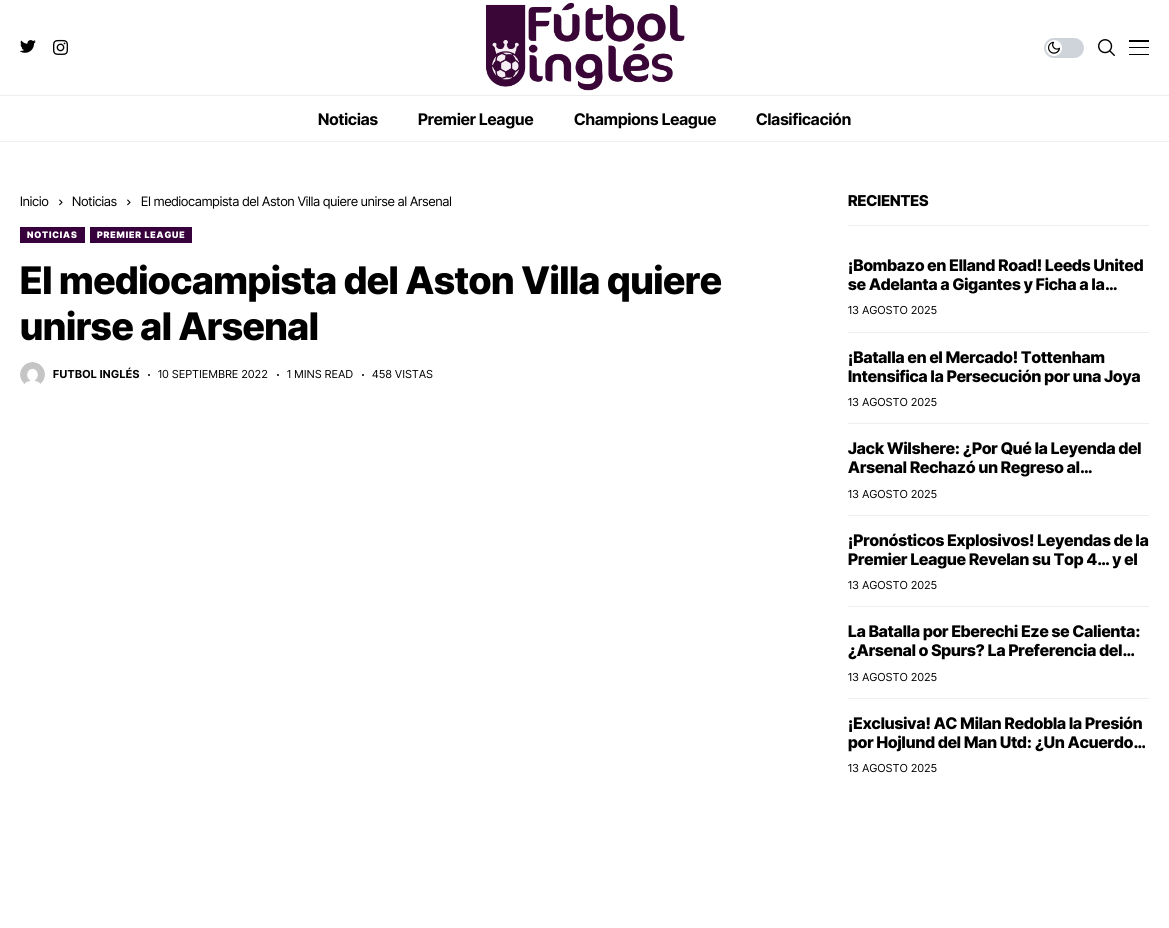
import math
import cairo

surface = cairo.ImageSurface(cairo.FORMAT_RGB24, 1169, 928)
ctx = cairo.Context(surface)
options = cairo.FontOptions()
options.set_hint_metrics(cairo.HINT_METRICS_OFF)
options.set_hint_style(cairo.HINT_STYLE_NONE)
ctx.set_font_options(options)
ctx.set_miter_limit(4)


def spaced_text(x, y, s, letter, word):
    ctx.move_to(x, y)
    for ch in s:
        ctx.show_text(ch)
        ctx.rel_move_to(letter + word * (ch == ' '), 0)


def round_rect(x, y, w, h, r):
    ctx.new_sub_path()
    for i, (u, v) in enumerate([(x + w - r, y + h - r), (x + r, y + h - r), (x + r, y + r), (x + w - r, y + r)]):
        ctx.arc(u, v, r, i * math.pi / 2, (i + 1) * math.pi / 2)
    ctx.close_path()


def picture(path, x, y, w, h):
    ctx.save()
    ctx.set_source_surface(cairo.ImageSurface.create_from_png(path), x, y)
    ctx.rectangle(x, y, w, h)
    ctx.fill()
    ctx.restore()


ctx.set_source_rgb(1, 1, 1)
ctx.paint()
picture("img1.png", 20, 40, 16, 13)
picture("img2.png", 53, 39, 15, 16)
picture("img3.png", 486, 2, 199, 89)
ctx.set_source_rgb(0.808, 0.831, 0.855)
round_rect(1044, 38, 40, 20, 10)
ctx.fill()
ctx.set_source_rgb(1, 1, 1)
ctx.arc(1054, 48, 8, 0, 2 * math.pi)
ctx.fill()
picture("img4.png", 1048, 41, 12, 13)
picture("img5.png", 1098, 39, 17, 17)
ctx.set_source_rgb(0, 0, 0)
ctx.rectangle(1129, 40, 20, 2)
ctx.fill()
ctx.rectangle(1129, 47, 20, 1)
ctx.fill()
ctx.rectangle(1129, 54, 20, 1)
ctx.fill()
ctx.set_source_rgb(0.933, 0.933, 0.933)
ctx.rectangle(0, 95, 1169, 1)
ctx.fill()
ctx.rectangle(0, 141, 1169, 1)
ctx.fill()
ctx.select_font_face("Inter Tight", cairo.FONT_SLANT_NORMAL, cairo.FONT_WEIGHT_BOLD)
ctx.set_font_size(16)
ctx.set_source_rgb(0, 0, 0)
ctx.move_to(318, 125)
ctx.show_text("Noticias")
ctx.move_to(418, 125)
ctx.show_text("Premier League")
ctx.move_to(574, 125)
ctx.show_text("Champions League")
ctx.move_to(756, 125)
ctx.show_text("Clasificación")
ctx.select_font_face("Inter Tight")
ctx.set_font_size(13)
ctx.move_to(20, 206)
ctx.show_text("Inicio")
picture("img6.png", 59, 199, 4, 7)
ctx.move_to(72, 206)
ctx.show_text("Noticias")
picture("img6.png", 127, 199, 4, 7)
ctx.move_to(141, 206)
ctx.show_text("El mediocampista del Aston Villa quiere unirse al Arsenal")
ctx.set_source_rgb(0.216, 0, 0.235)
ctx.rectangle(20, 227, 65, 16)
ctx.fill()
ctx.select_font_face("Inter Tight Black")
ctx.set_font_size(9)
ctx.set_source_rgb(1, 1, 1)
spaced_text(27, 238, "NOTICIAS", 0.9, 0)
ctx.set_source_rgb(0.216, 0, 0.235)
ctx.rectangle(90, 227, 102, 16)
ctx.fill()
ctx.set_source_rgb(1, 1, 1)
spaced_text(97, 238, "PREMIER LEAGUE", 0.9, 0)
ctx.select_font_face("Inter Tight ExtraBold")
ctx.set_font_size(38)
ctx.set_source_rgb(0, 0, 0)
ctx.move_to(20, 294)
ctx.show_text("El mediocampista del Aston Villa quiere")
ctx.move_to(20, 340)
ctx.show_text("unirse al Arsenal")
picture("img7.png", 20, 362, 25, 22)
ctx.select_font_face("Inter Tight", cairo.FONT_SLANT_NORMAL, cairo.FONT_WEIGHT_BOLD)
ctx.set_font_size(11)
spaced_text(53, 378, "FUTBOL INGLÉS", 0.4, 0)
ctx.new_path()
ctx.arc(149, 375, 1, 0, 2 * math.pi)
ctx.fill()
ctx.select_font_face("Inter Tight")
spaced_text(158, 378, "10 SEPTIEMBRE 2022", 0.4, 0)
ctx.new_path()
ctx.arc(278, 375, 1, 0, 2 * math.pi)
ctx.fill()
spaced_text(287, 378, "1 MINS READ", 0.4, 0)
ctx.new_path()
ctx.arc(363, 375, 1, 0, 2 * math.pi)
ctx.fill()
spaced_text(372, 378, "458 VISTAS", 0.4, 0)
ctx.set_source_rgb(0.933, 0.933, 0.933)
ctx.rectangle(848, 225, 301, 1)
ctx.fill()
ctx.select_font_face("Inter Tight ExtraBold")
ctx.set_font_size(15)
ctx.set_source_rgb(0, 0, 0)
ctx.move_to(848, 206)
ctx.show_text("RECIENTES")
ctx.set_font_size(16)
ctx.move_to(848, 271)
ctx.show_text("¡Bombazo en Elland Road! Leeds United")
ctx.move_to(848, 290)
ctx.show_text("se Adelanta a Gigantes y Ficha a la…")
ctx.select_font_face("Inter Tight")
ctx.set_font_size(11)
spaced_text(848, 314, "13 AGOSTO 2025", 0.4, 0)
ctx.set_source_rgb(0.933, 0.933, 0.933)
ctx.rectangle(848, 332, 301, 1)
ctx.fill()
ctx.select_font_face("Inter Tight ExtraBold")
ctx.set_font_size(16)
ctx.set_source_rgb(0, 0, 0)
ctx.move_to(848, 363)
ctx.show_text("¡Batalla en el Mercado! Tottenham")
ctx.move_to(848, 382)
ctx.show_text("Intensifica la Persecución por una Joya")
ctx.select_font_face("Inter Tight")
ctx.set_font_size(11)
spaced_text(848, 406, "13 AGOSTO 2025", 0.4, 0)
ctx.set_source_rgb(0.933, 0.933, 0.933)
ctx.rectangle(848, 423, 301, 1)
ctx.fill()
ctx.select_font_face("Inter Tight ExtraBold")
ctx.set_font_size(16)
ctx.set_source_rgb(0, 0, 0)
ctx.move_to(848, 454)
ctx.show_text("Jack Wilshere: ¿Por Qué la Leyenda del")
ctx.move_to(848, 473)
ctx.show_text("Arsenal Rechazó un Regreso al…")
ctx.select_font_face("Inter Tight")
ctx.set_font_size(11)
spaced_text(848, 498, "13 AGOSTO 2025", 0.4, 0)
ctx.set_source_rgb(0.933, 0.933, 0.933)
ctx.rectangle(848, 515, 301, 1)
ctx.fill()
ctx.select_font_face("Inter Tight ExtraBold")
ctx.set_font_size(16)
ctx.set_source_rgb(0, 0, 0)
ctx.move_to(848, 546)
ctx.show_text("¡Pronósticos Explosivos! Leyendas de la")
ctx.move_to(848, 565)
ctx.show_text("Premier League Revelan su Top 4… y el")
ctx.select_font_face("Inter Tight")
ctx.set_font_size(11)
spaced_text(848, 589, "13 AGOSTO 2025", 0.4, 0)
ctx.set_source_rgb(0.933, 0.933, 0.933)
ctx.rectangle(848, 606, 301, 1)
ctx.fill()
ctx.select_font_face("Inter Tight ExtraBold")
ctx.set_font_size(16)
ctx.set_source_rgb(0, 0, 0)
ctx.move_to(848, 637)
ctx.show_text("La Batalla por Eberechi Eze se Calienta:")
ctx.move_to(848, 656)
ctx.show_text("¿Arsenal o Spurs? La Preferencia del…")
ctx.select_font_face("Inter Tight")
ctx.set_font_size(11)
spaced_text(848, 681, "13 AGOSTO 2025", 0.4, 0)
ctx.set_source_rgb(0.933, 0.933, 0.933)
ctx.rectangle(848, 698, 301, 1)
ctx.fill()
ctx.select_font_face("Inter Tight ExtraBold")
ctx.set_font_size(16)
ctx.set_source_rgb(0, 0, 0)
ctx.move_to(848, 729)
ctx.show_text("¡Exclusiva! AC Milan Redobla la Presión")
ctx.move_to(848, 748)
ctx.show_text("por Hojlund del Man Utd: ¿Un Acuerdo…")
ctx.select_font_face("Inter Tight")
ctx.set_font_size(11)
spaced_text(848, 772, "13 AGOSTO 2025", 0.4, 0)
surface.write_to_png("page.png")
